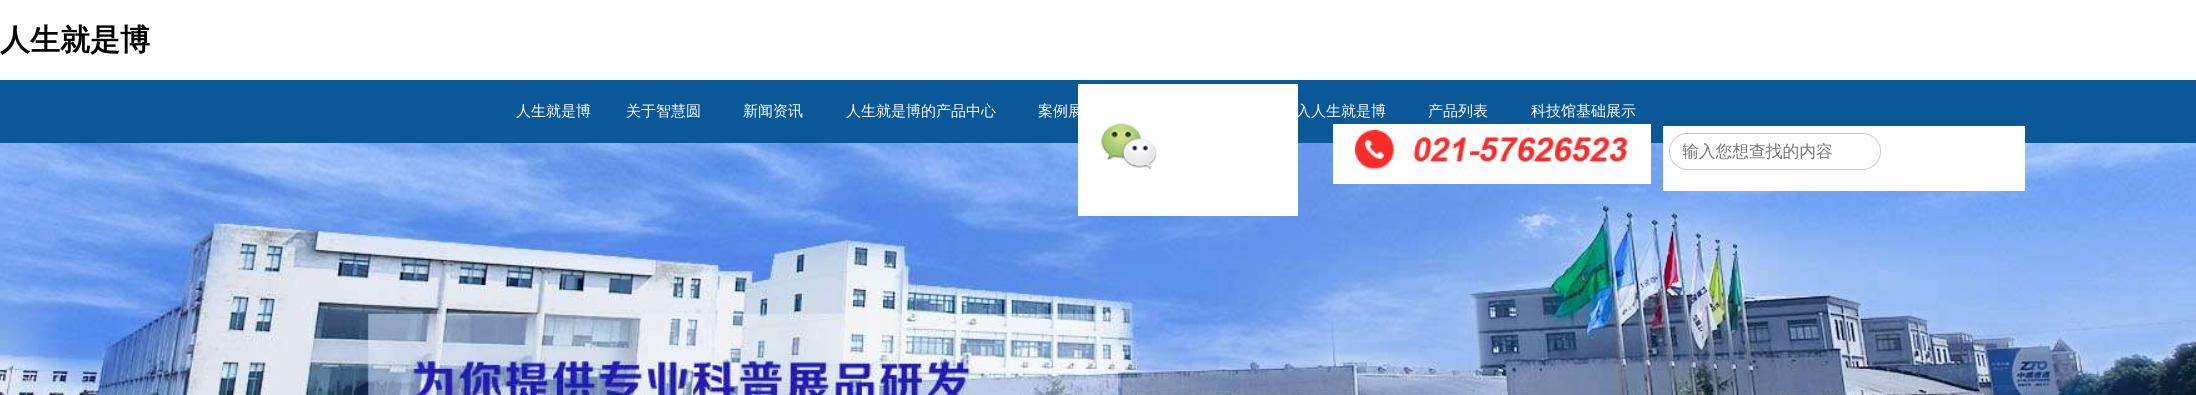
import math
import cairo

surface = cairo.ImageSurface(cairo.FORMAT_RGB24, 2196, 395)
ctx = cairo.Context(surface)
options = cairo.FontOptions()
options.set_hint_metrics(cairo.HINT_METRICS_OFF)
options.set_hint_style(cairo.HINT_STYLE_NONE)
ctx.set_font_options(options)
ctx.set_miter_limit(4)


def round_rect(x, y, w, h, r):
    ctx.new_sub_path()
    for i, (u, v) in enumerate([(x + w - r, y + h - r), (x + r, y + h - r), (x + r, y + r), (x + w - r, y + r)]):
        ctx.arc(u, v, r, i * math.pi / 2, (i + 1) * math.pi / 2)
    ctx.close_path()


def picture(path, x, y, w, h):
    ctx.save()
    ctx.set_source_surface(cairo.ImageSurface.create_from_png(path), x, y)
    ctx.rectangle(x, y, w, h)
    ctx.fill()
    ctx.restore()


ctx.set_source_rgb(1, 1, 1)
ctx.paint()
ctx.select_font_face("WenQuanYi Zen Hei", cairo.FONT_SLANT_NORMAL, cairo.FONT_WEIGHT_BOLD)
ctx.set_font_size(30)
ctx.set_source_rgb(0, 0, 0)
ctx.move_to(0, 50)
ctx.show_text("人生就是博")
ctx.set_source_rgb(0.043, 0.345, 0.6)
ctx.rectangle(0, 80, 2196, 63)
ctx.fill()
ctx.select_font_face("WenQuanYi Zen Hei Medium")
ctx.set_font_size(15)
ctx.set_source_rgb(1, 1, 1)
ctx.move_to(516, 116)
ctx.show_text("人生就是博")
ctx.move_to(626, 116)
ctx.show_text("关于智慧圆")
ctx.move_to(743, 116)
ctx.show_text("新闻资讯")
ctx.move_to(846, 116)
ctx.show_text("人生就是博的产品中心")
ctx.move_to(1038, 116)
ctx.show_text("案例展")
ctx.move_to(1296, 116)
ctx.show_text("入人生就是博")
ctx.move_to(1428, 116)
ctx.show_text("产品列表")
ctx.move_to(1531, 116)
ctx.show_text("科技馆基础展示")
picture("img3.png", 0, 143, 2196, 252)
ctx.rectangle(1078, 84, 220, 132)
ctx.fill()
picture("img1.png", 1101, 123, 56, 46)
ctx.rectangle(1333, 124, 318, 60)
ctx.fill()
picture("img2.png", 1355, 130, 273, 39)
ctx.rectangle(1663, 126, 362, 65)
ctx.fill()
round_rect(1669.5, 133.5, 211, 36, 18)
ctx.set_source_rgb(0.8, 0.8, 0.8)
ctx.set_line_width(1)
ctx.stroke()
ctx.save()
ctx.rectangle(1683, 141, 150, 23)
ctx.clip()
ctx.set_font_size(16.75)
ctx.set_source_rgb(0.459, 0.459, 0.459)
ctx.move_to(1682, 157)
ctx.show_text("输入您想查找的内容")
ctx.restore()
surface.write_to_png("page.png")
